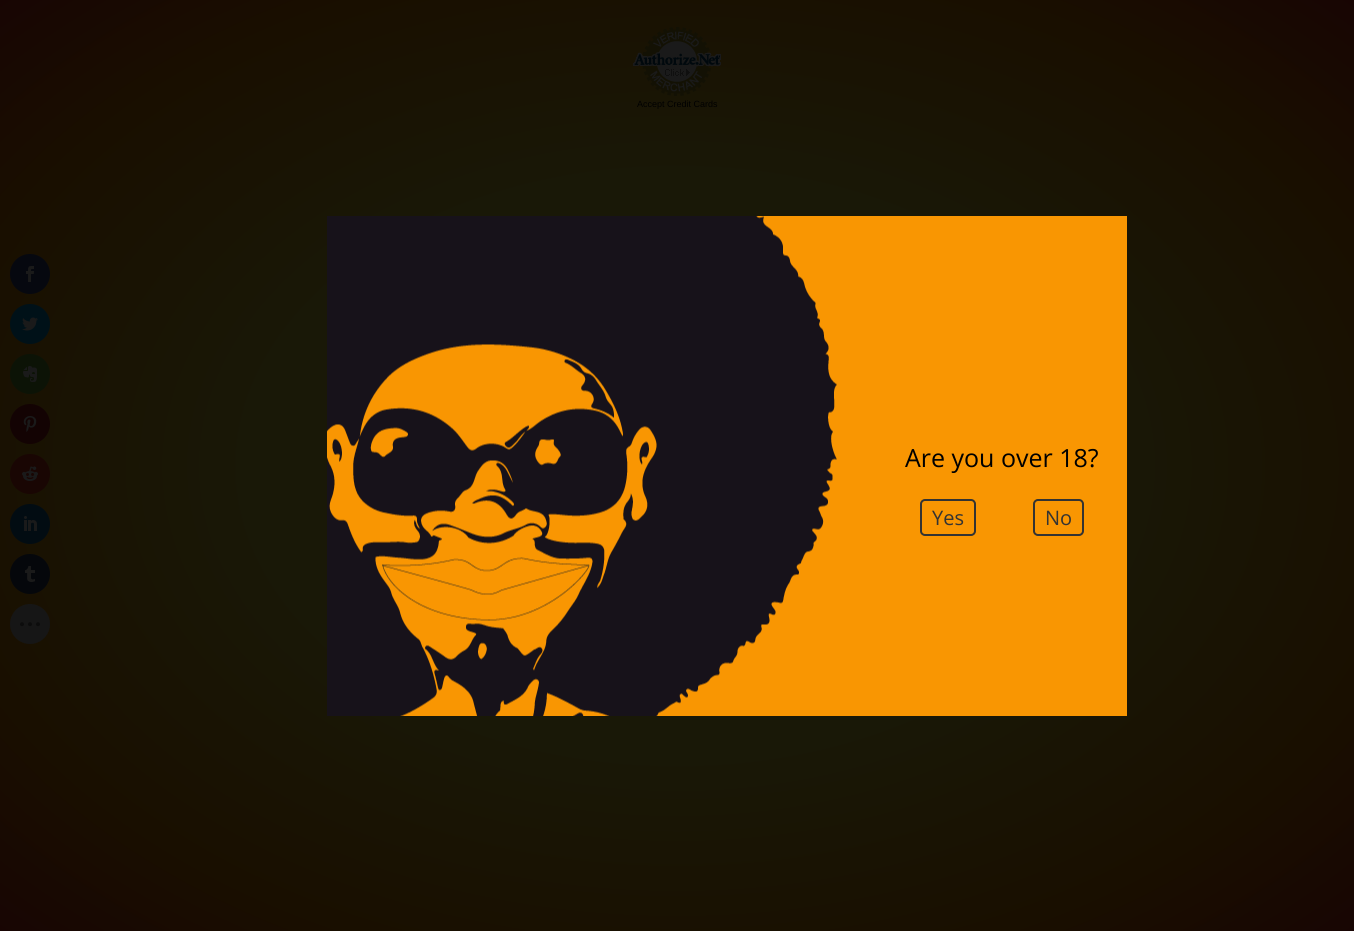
import math
import cairo

surface = cairo.ImageSurface(cairo.FORMAT_RGB24, 1354, 931)
ctx = cairo.Context(surface)
options = cairo.FontOptions()
options.set_hint_metrics(cairo.HINT_METRICS_OFF)
options.set_hint_style(cairo.HINT_STYLE_NONE)
ctx.set_font_options(options)
ctx.set_miter_limit(4)


def round_rect(x, y, w, h, r):
    ctx.new_sub_path()
    for i, (u, v) in enumerate([(x + w - r, y + h - r), (x + r, y + h - r), (x + r, y + r), (x + w - r, y + r)]):
        ctx.arc(u, v, r, i * math.pi / 2, (i + 1) * math.pi / 2)
    ctx.close_path()


def picture(path, x, y, w, h):
    ctx.save()
    ctx.set_source_surface(cairo.ImageSurface.create_from_png(path), x, y)
    ctx.rectangle(x, y, w, h)
    ctx.fill()
    ctx.restore()


ctx.set_source_rgb(1, 1, 1)
ctx.paint()
gradient = cairo.RadialGradient(0, 0, 0, 0, 0, 1)
gradient.set_matrix(cairo.Matrix(1 / 957, 0, 0, 1 / 658, -1 * 677 / 957, -1 * 466 / 658))
gradient.add_color_stop_rgba(0.44, 0.098, 0.094, 0.027, 1)
gradient.add_color_stop_rgba(0.78, 0.098, 0.059, 0, 1)
gradient.add_color_stop_rgba(1, 0.094, 0.02, 0.012, 1)
ctx.set_source(gradient)
ctx.rectangle(0, 0, 1354, 931)
ctx.fill()
picture("img1.png", 633, 27, 88, 69)
ctx.select_font_face("Liberation Sans")
ctx.set_font_size(9)
ctx.set_source_rgb(0, 0, 0)
ctx.move_to(637, 107)
ctx.show_text("Accept Credit Cards")
ctx.set_source_rgb(0.024, 0.035, 0.059)
ctx.new_path()
ctx.arc(30, 274, 20, 0, 2 * math.pi)
ctx.fill()
picture("img2.png", 26, 266, 8, 16)
ctx.set_source_rgb(0, 0.067, 0.094)
ctx.arc(30, 324, 20, 0, 2 * math.pi)
ctx.fill()
picture("img3.png", 22, 317, 16, 14)
ctx.set_source_rgb(0.047, 0.075, 0.027)
ctx.arc(30, 374, 20, 0, 2 * math.pi)
ctx.fill()
picture("img4.png", 23, 366, 14, 16)
ctx.set_source_rgb(0.078, 0.012, 0.012)
ctx.arc(30, 424, 20, 0, 2 * math.pi)
ctx.fill()
picture("img5.png", 23, 416, 14, 16)
ctx.set_source_rgb(0.098, 0.027, 0.012)
ctx.arc(30, 474, 20, 0, 2 * math.pi)
ctx.fill()
picture("img6.png", 22, 466, 16, 15)
ctx.set_source_rgb(0.008, 0.047, 0.071)
ctx.arc(30, 524, 20, 0, 2 * math.pi)
ctx.fill()
picture("img7.png", 24, 516, 13, 15)
ctx.set_source_rgb(0.02, 0.031, 0.043)
ctx.arc(30, 574, 20, 0, 2 * math.pi)
ctx.fill()
picture("img8.png", 25, 566, 10, 16)
ctx.set_source_rgb(0.086, 0.086, 0.086)
ctx.arc(30, 624, 20, 0, 2 * math.pi)
ctx.fill()
picture("img9.png", 20, 622, 20, 5)
ctx.set_source_rgb(0.973, 0.588, 0.008)
ctx.rectangle(327, 216, 800, 500)
ctx.fill()
picture("img10.png", 327, 216, 510, 500)
ctx.select_font_face("Open Sans")
ctx.set_font_size(25)
ctx.set_source_rgb(0, 0, 0)
ctx.move_to(905, 467)
ctx.show_text("Are you over 18?")
round_rect(921, 500, 54, 35, 4)
ctx.set_source_rgb(0.2, 0.2, 0.2)
ctx.stroke()
ctx.set_font_size(20)
ctx.move_to(932, 525)
ctx.show_text("Yes")
round_rect(1034, 500, 49, 35, 4)
ctx.stroke()
ctx.move_to(1045, 525)
ctx.show_text("No")
surface.write_to_png("page.png")
